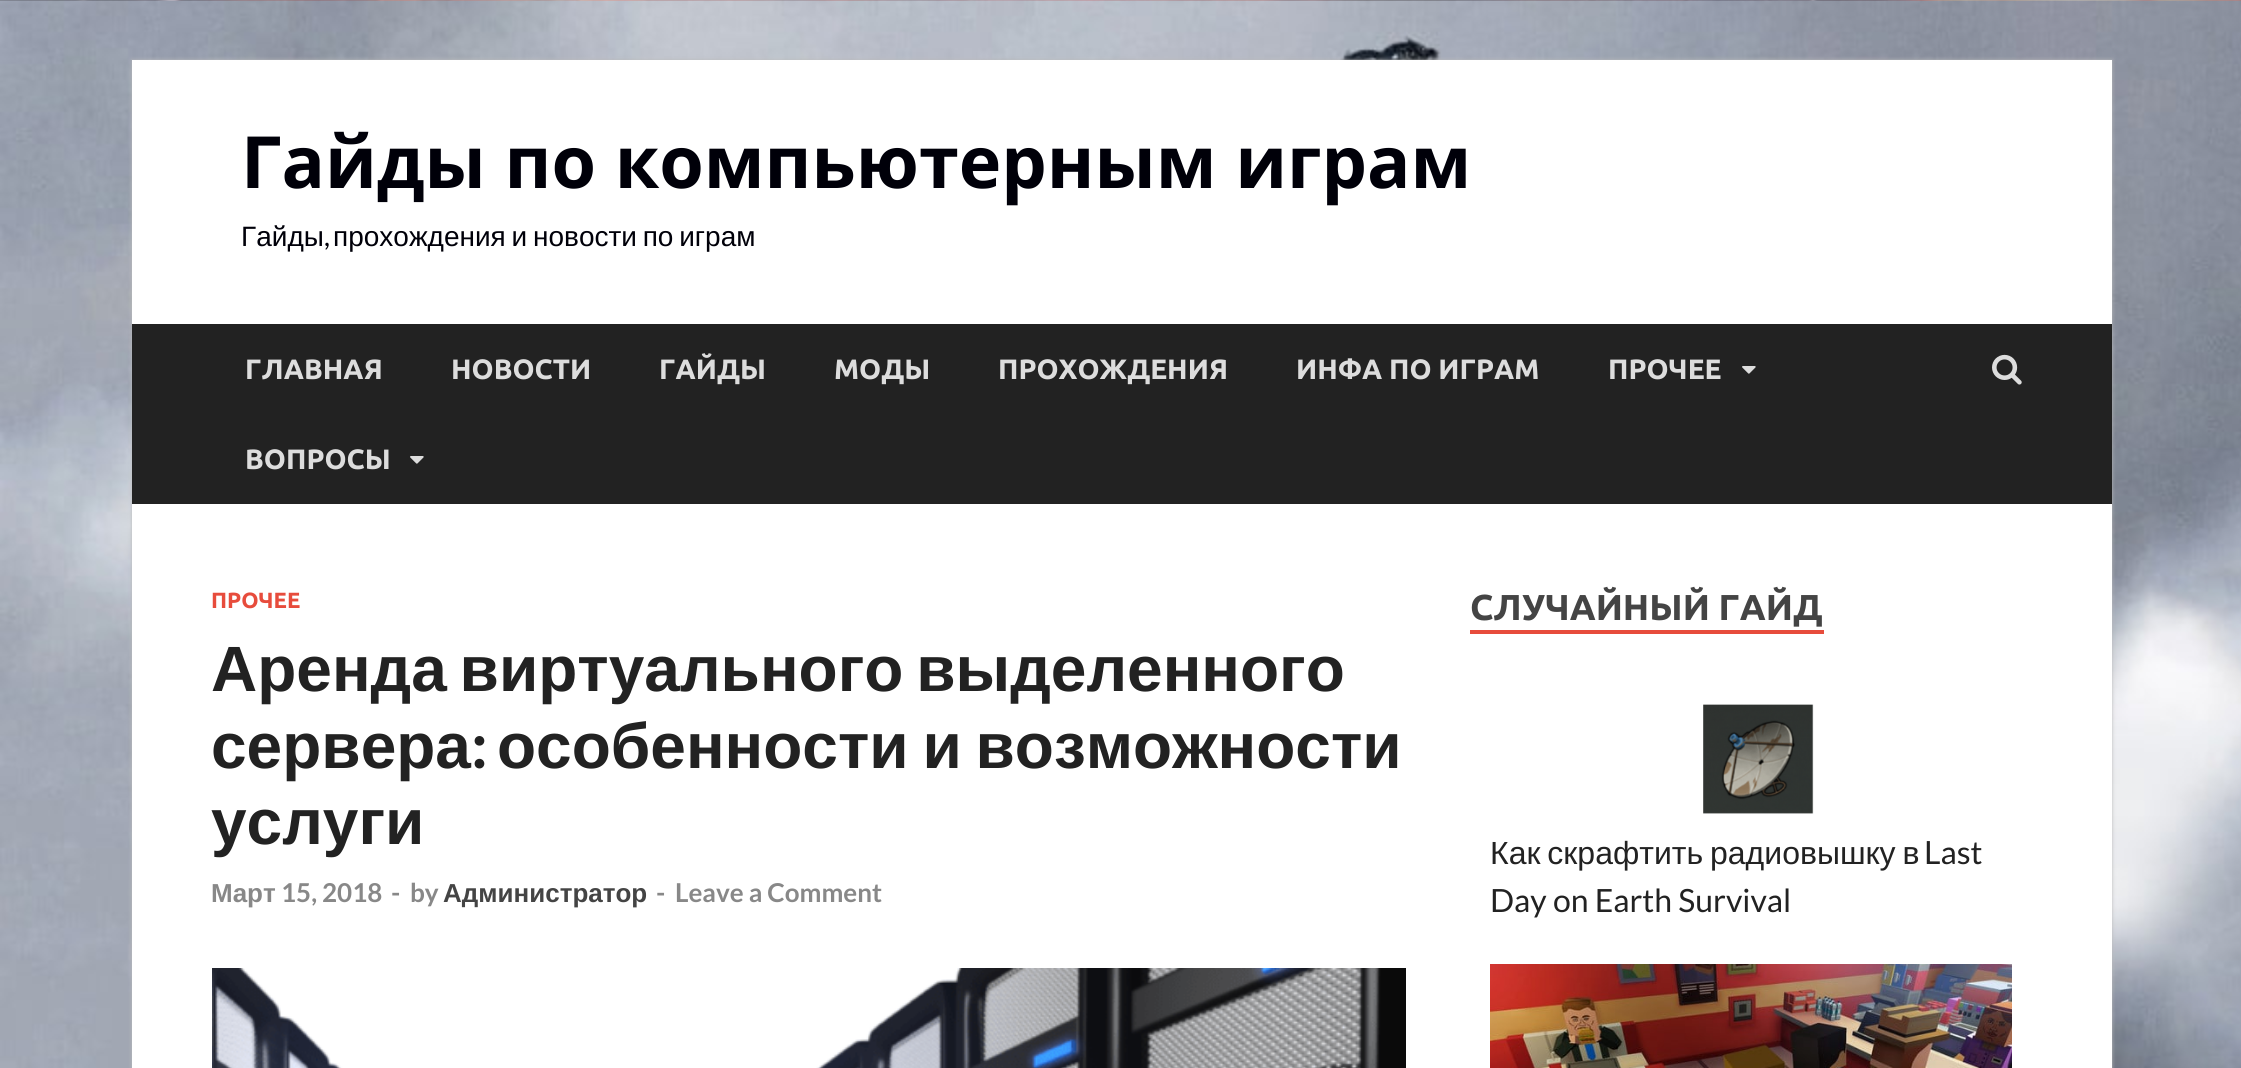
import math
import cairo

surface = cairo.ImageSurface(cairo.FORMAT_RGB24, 2241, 1068)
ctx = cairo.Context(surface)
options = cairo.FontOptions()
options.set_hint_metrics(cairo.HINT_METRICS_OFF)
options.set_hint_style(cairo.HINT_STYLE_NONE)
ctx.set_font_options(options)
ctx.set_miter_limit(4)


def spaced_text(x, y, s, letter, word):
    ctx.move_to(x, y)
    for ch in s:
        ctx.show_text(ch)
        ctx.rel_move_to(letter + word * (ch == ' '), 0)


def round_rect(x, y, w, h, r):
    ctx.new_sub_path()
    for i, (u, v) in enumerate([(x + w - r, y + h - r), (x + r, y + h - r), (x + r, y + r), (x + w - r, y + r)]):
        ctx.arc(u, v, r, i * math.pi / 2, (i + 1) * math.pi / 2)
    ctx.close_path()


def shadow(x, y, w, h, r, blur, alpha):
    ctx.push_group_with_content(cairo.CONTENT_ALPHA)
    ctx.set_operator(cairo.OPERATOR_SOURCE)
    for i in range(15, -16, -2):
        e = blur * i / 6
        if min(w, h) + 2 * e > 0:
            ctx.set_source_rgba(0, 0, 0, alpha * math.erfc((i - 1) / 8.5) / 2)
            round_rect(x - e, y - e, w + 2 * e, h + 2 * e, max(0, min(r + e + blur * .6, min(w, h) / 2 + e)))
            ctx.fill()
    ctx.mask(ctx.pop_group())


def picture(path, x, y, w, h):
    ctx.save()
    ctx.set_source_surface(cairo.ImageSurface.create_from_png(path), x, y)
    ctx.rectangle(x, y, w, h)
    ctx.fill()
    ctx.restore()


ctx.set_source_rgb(1, 1, 1)
ctx.paint()
picture("img1.png", 0, 0, 2241, 1068)
ctx.set_source_rgb(0.733, 0.733, 0.733)
shadow(132, 60, 1980, 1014, 0, 2, 1)
ctx.set_source_rgb(1, 1, 1)
ctx.rectangle(132, 60, 1980, 1008)
ctx.fill()
ctx.select_font_face("Open Sans", cairo.FONT_SLANT_NORMAL, cairo.FONT_WEIGHT_BOLD)
ctx.set_font_size(72)
ctx.set_source_rgb(0, 0, 0.039)
ctx.move_to(241, 188)
ctx.show_text("Гайды по компьютерным играм")
ctx.select_font_face("Liberation Sans")
ctx.set_font_size(28)
ctx.move_to(241, 246)
ctx.show_text("Гайды")
ctx.select_font_face("Lato")
ctx.move_to(324, 246)
ctx.show_text(",")
ctx.select_font_face("Liberation Sans")
spaced_text(333, 246, "прохождения и новости по играм", 0, -2)
ctx.set_source_rgb(0.133, 0.133, 0.133)
ctx.rectangle(132, 324, 1980, 180)
ctx.fill()
ctx.select_font_face("Ubuntu", cairo.FONT_SLANT_NORMAL, cairo.FONT_WEIGHT_BOLD)
ctx.set_source_rgb(0.867, 0.867, 0.867)
ctx.move_to(245, 379)
ctx.show_text("ГЛАВНАЯ")
ctx.move_to(451, 379)
ctx.show_text("НОВОСТИ")
ctx.move_to(659, 379)
ctx.show_text("ГАЙДЫ")
ctx.move_to(834, 379)
ctx.show_text("МОДЫ")
ctx.move_to(998, 379)
ctx.show_text("ПРОХОЖДЕНИЯ")
ctx.move_to(1296, 379)
ctx.show_text("ИНФА ПО ИГРАМ")
ctx.move_to(1608, 379)
ctx.show_text("ПРОЧЕЕ")
picture("img2.png", 1742, 366, 14, 8)
ctx.move_to(245, 469)
ctx.show_text("ВОПРОСЫ")
picture("img2.png", 410, 456, 14, 8)
picture("img3.png", 1992, 354, 30, 31)
ctx.set_font_size(22)
ctx.set_source_rgb(0.906, 0.298, 0.235)
ctx.move_to(211, 608)
ctx.show_text("ПРОЧЕЕ")
ctx.select_font_face("Liberation Sans", cairo.FONT_SLANT_NORMAL, cairo.FONT_WEIGHT_BOLD)
ctx.set_font_size(64)
ctx.set_source_rgb(0.133, 0.133, 0.133)
spaced_text(211, 691, "Аренда виртуального выделенного", 0, -5)
ctx.move_to(211, 768)
ctx.show_text("сервера")
ctx.select_font_face("Lato", cairo.FONT_SLANT_NORMAL, cairo.FONT_WEIGHT_BOLD)
ctx.move_to(471, 768)
ctx.show_text(":")
ctx.select_font_face("Liberation Sans", cairo.FONT_SLANT_NORMAL, cairo.FONT_WEIGHT_BOLD)
spaced_text(497, 768, "особенности и возможности", 0, -4)
ctx.move_to(211, 844)
ctx.show_text("услуги")
ctx.set_font_size(26)
ctx.set_source_rgb(0.533, 0.533, 0.533)
ctx.move_to(211, 902)
ctx.show_text("Март")
ctx.select_font_face("Lato", cairo.FONT_SLANT_NORMAL, cairo.FONT_WEIGHT_BOLD)
ctx.move_to(281, 902)
ctx.show_text("15, 2018")
ctx.move_to(391, 902)
ctx.show_text("-")
ctx.move_to(410, 902)
ctx.show_text("by")
ctx.select_font_face("Liberation Sans", cairo.FONT_SLANT_NORMAL, cairo.FONT_WEIGHT_BOLD)
ctx.set_source_rgb(0.267, 0.267, 0.267)
ctx.move_to(443, 902)
ctx.show_text("Администратор")
ctx.select_font_face("Lato", cairo.FONT_SLANT_NORMAL, cairo.FONT_WEIGHT_BOLD)
ctx.set_source_rgb(0.533, 0.533, 0.533)
ctx.move_to(656, 902)
ctx.show_text("-")
ctx.move_to(675, 902)
ctx.show_text("Leave a Comment")
picture("img4.png", 212, 968, 1194, 100)
ctx.set_source_rgb(0.906, 0.298, 0.235)
ctx.rectangle(1470, 630, 354, 4)
ctx.fill()
ctx.select_font_face("Ubuntu", cairo.FONT_SLANT_NORMAL, cairo.FONT_WEIGHT_BOLD)
ctx.set_font_size(36)
ctx.set_source_rgb(0.267, 0.267, 0.267)
ctx.move_to(1470, 620)
ctx.show_text("СЛУЧАЙНЫЙ ГАЙД")
picture("img5.png", 1703, 704, 111, 110)
ctx.select_font_face("Liberation Sans")
ctx.set_font_size(32)
ctx.set_source_rgb(0.133, 0.133, 0.133)
spaced_text(1490, 864, "Как скрафтить радиовышку в", 0, -2)
ctx.select_font_face("Lato")
ctx.move_to(1924, 864)
ctx.show_text("Last")
ctx.move_to(1490, 912)
ctx.show_text("Day on Earth Survival")
picture("img6.png", 1490, 964, 522, 104)
surface.write_to_png("page.png")
